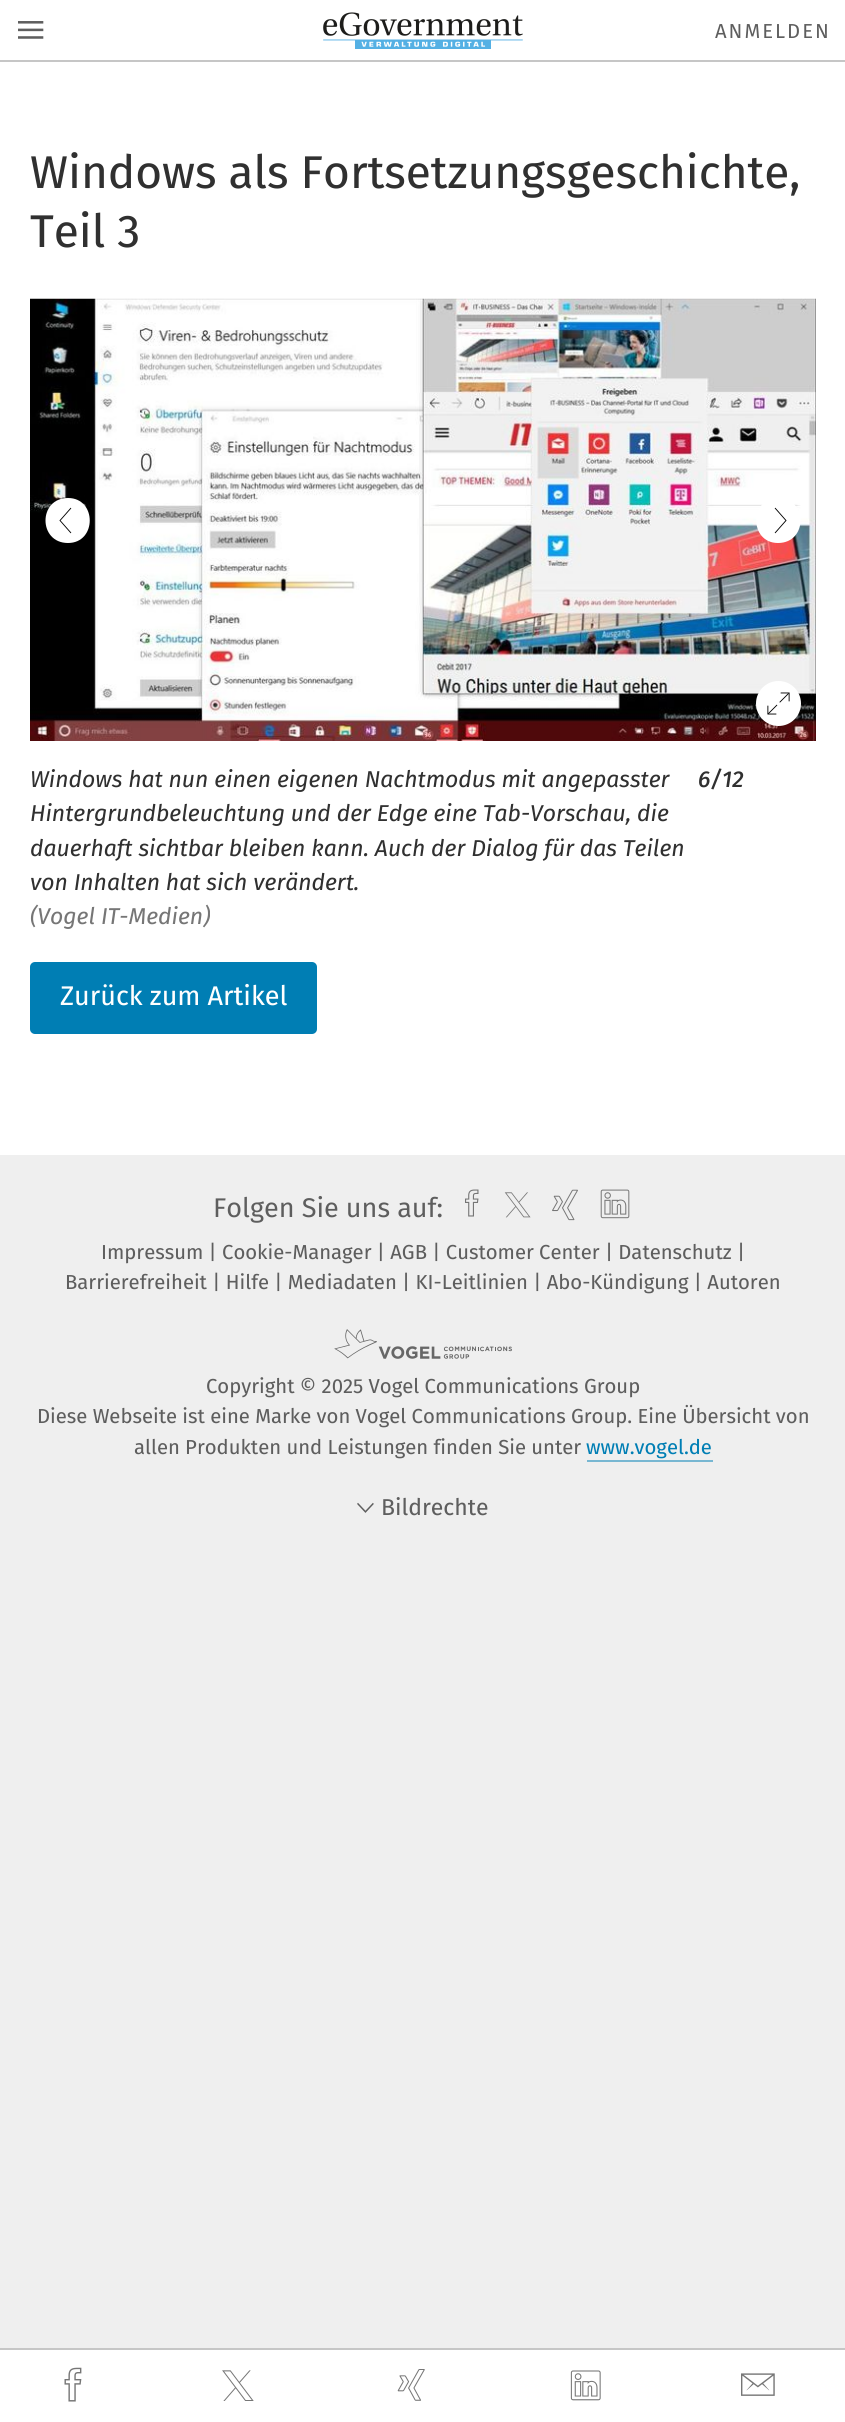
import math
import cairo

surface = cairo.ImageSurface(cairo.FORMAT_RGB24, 845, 2422)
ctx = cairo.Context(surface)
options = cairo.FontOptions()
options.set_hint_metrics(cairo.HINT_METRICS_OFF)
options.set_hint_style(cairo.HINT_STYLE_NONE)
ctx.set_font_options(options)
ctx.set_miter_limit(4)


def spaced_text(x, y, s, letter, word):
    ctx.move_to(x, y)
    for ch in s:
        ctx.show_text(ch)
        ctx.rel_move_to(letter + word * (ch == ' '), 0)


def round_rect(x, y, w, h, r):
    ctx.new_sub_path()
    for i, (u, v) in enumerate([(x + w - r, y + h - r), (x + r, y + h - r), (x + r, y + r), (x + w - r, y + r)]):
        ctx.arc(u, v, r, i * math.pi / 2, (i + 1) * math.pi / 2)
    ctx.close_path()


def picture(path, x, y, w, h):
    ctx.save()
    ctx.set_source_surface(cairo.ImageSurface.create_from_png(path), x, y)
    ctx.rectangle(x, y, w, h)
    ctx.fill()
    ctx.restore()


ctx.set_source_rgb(0.937, 0.937, 0.937)
ctx.paint()
ctx.set_source_rgb(1, 1, 1)
ctx.rectangle(0, 62, 845, 1093)
ctx.fill()
ctx.rectangle(0, 0, 845, 60)
ctx.fill()
ctx.set_source_rgb(0.776, 0.776, 0.776)
ctx.rectangle(0, 60, 845, 2)
ctx.fill()
picture("img1.png", 18, 21, 26, 18)
picture("img2.png", 323, 12, 200, 37)
ctx.select_font_face("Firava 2")
ctx.set_font_size(20.25)
ctx.set_source_rgb(0.369, 0.369, 0.369)
spaced_text(715, 38, "ANMELDEN", 2, 0)
ctx.select_font_face("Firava")
ctx.set_font_size(45.9)
ctx.set_source_rgb(0.188, 0.188, 0.188)
ctx.move_to(30, 188)
ctx.show_text("Windows als Fortsetzungsgeschichte,")
ctx.move_to(30, 247)
ctx.show_text("Teil 3")
picture("img3.png", 30, 298, 786, 443)
ctx.set_source_rgb(1, 1, 1)
ctx.new_path()
ctx.move_to(68, 543)
ctx.curve_to(97, 543, 97, 498, 68, 498)
ctx.curve_to(38, 498, 38, 543, 68, 543)
ctx.fill()
ctx.new_path()
ctx.move_to(71, 508)
ctx.line_to(60, 520.5)
ctx.line_to(71, 533)
ctx.set_source_rgb(0, 0, 0)
ctx.set_line_width(0.9)
ctx.stroke()
ctx.set_source_rgb(1, 1, 1)
ctx.new_path()
ctx.move_to(778, 498)
ctx.curve_to(749, 498, 749, 543, 778, 543)
ctx.curve_to(808, 543, 808, 498, 778, 498)
ctx.fill()
ctx.new_path()
ctx.move_to(775, 533)
ctx.line_to(786, 520.5)
ctx.line_to(775, 508)
ctx.set_source_rgb(0, 0, 0)
ctx.stroke()
picture("img4.png", 756, 681, 45, 45)
ctx.select_font_face("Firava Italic", cairo.FONT_SLANT_ITALIC)
ctx.set_font_size(22.95)
ctx.set_source_rgb(0.188, 0.188, 0.188)
ctx.move_to(30, 787)
ctx.show_text("Windows hat nun einen eigenen Nachtmodus mit angepasster")
ctx.move_to(30, 821)
ctx.show_text("Hintergrundbeleuchtung und der Edge eine Tab-Vorschau, die")
ctx.move_to(30, 856)
ctx.show_text("dauerhaft sichtbar bleiben kann. Auch der Dialog für das Teilen")
ctx.move_to(30, 890)
ctx.show_text("von Inhalten hat sich verändert.")
ctx.set_source_rgb(0.463, 0.463, 0.463)
ctx.move_to(30, 924)
ctx.show_text("(Vogel IT-Medien)")
ctx.select_font_face("Firava Italic Medium", cairo.FONT_SLANT_ITALIC)
ctx.set_source_rgb(0.188, 0.188, 0.188)
ctx.move_to(698, 787)
ctx.show_text("6/12")
ctx.set_source_rgb(0, 0.494, 0.706)
round_rect(30, 962, 287, 72, 5)
ctx.fill()
ctx.select_font_face("Firava")
ctx.set_font_size(27)
ctx.set_source_rgb(1, 1, 1)
ctx.move_to(60, 1005)
ctx.show_text("Zurück zum Artikel")
ctx.rectangle(0, 2350, 845, 72)
ctx.fill()
ctx.set_source_rgb(0.776, 0.776, 0.776)
ctx.rectangle(0, 2348, 845, 2)
ctx.fill()
picture("img5.png", 64, 2367, 18, 35)
picture("img6.png", 222, 2370, 32, 31)
picture("img7.png", 397, 2369, 28, 32)
picture("img8.png", 570, 2370, 31, 31)
picture("img9.png", 741, 2373, 34, 23)
ctx.select_font_face("Firava 2")
ctx.set_source_rgb(0.369, 0.369, 0.369)
ctx.move_to(213, 1217)
ctx.show_text("Folgen Sie uns auf:")
picture("img10.png", 465, 1189, 14, 28)
picture("img11.png", 504, 1192, 27, 26)
picture("img12.png", 552, 1189, 26, 32)
picture("img13.png", 600, 1189, 30, 30)
ctx.select_font_face("Firava")
ctx.set_font_size(20.25)
ctx.move_to(101, 1259)
ctx.show_text("Impressum | Cookie-Manager | AGB | Customer Center | Datenschutz |")
ctx.move_to(65, 1289)
ctx.show_text("Barrierefreiheit | Hilfe | Mediadaten | KI-Leitlinien | Abo-Kündigung | Autoren")
picture("img14.png", 334, 1329, 178, 30)
ctx.move_to(206, 1393)
ctx.show_text("Copyright © 2025 Vogel Communications Group")
ctx.move_to(37, 1423)
ctx.show_text("Diese Webseite ist eine Marke von Vogel Communications Group. Eine Übersicht von")
ctx.move_to(134, 1454)
ctx.show_text("allen Produkten und Leistungen finden Sie unter")
ctx.set_source_rgb(0, 0.494, 0.706)
ctx.move_to(586, 1454)
ctx.show_text("www.vogel.de")
ctx.set_source_rgb(0.471, 0.718, 0.824)
ctx.rectangle(587, 1460, 126, 2)
ctx.fill()
picture("img15.png", 357, 1502, 17, 11)
ctx.set_font_size(22.95)
ctx.set_source_rgb(0.369, 0.369, 0.369)
ctx.move_to(381, 1515)
ctx.show_text("Bildrechte")
surface.write_to_png("page.png")
